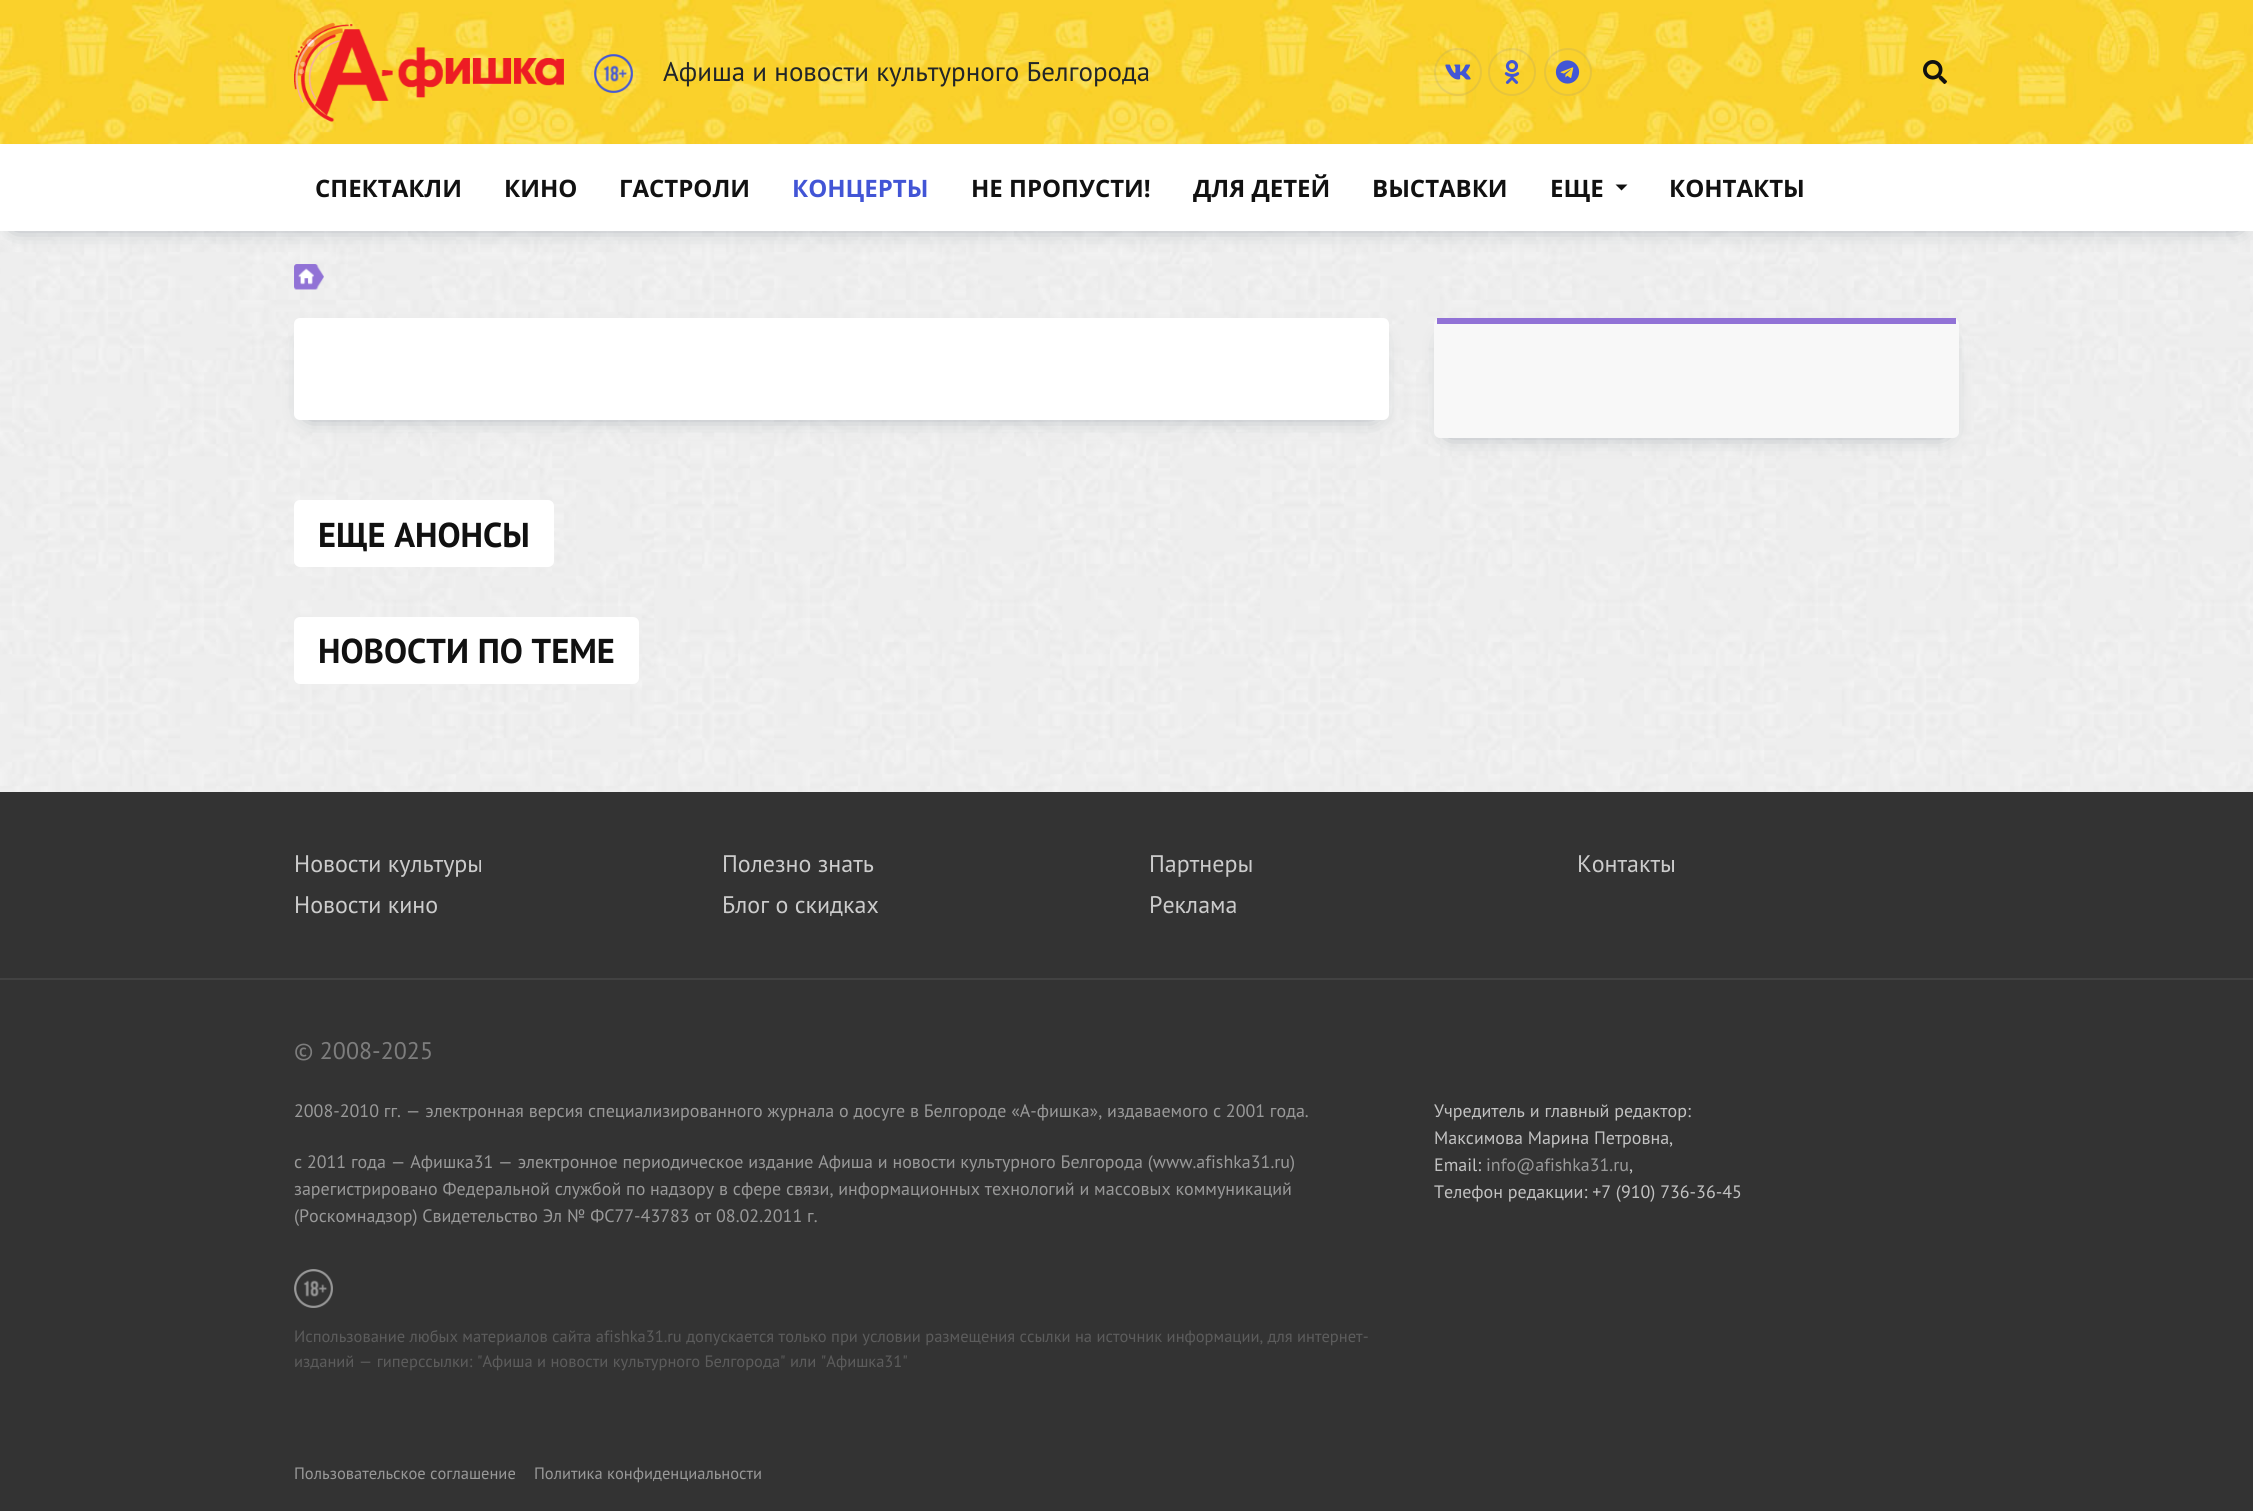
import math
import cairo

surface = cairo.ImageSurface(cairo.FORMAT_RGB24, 2253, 1511)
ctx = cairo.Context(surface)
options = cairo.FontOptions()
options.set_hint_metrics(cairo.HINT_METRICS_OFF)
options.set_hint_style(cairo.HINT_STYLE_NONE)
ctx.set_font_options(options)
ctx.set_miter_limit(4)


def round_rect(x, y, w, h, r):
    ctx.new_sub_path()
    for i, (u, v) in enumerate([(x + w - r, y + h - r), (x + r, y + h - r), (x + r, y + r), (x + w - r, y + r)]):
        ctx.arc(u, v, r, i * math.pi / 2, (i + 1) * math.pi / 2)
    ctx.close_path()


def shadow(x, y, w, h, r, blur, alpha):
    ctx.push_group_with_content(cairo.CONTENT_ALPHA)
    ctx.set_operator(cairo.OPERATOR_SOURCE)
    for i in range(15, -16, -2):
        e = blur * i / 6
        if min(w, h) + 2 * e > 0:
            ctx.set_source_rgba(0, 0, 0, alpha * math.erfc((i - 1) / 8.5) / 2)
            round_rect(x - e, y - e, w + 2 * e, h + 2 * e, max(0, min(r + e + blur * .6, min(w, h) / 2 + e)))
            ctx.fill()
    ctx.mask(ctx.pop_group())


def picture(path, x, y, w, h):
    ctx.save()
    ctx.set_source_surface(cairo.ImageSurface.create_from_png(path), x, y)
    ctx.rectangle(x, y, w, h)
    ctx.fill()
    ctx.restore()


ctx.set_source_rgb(1, 1, 1)
ctx.paint()
picture("img1.png", 0, 231, 2253, 561)
picture("img2.png", 0, 0, 2253, 144)
picture("img3.png", 294, 22, 270, 100)
picture("img4.png", 594, 54, 39, 39)
ctx.select_font_face("PT Sans")
ctx.set_font_size(27)
ctx.set_source_rgb(0.129, 0.145, 0.161)
ctx.move_to(663, 81)
ctx.show_text("Афиша и новости культурного Белгорода")
ctx.new_path()
ctx.arc(1458, 72, 23, 0, 2 * math.pi)
ctx.set_source_rgba(0.259, 0.337, 0.839, 0.1)
ctx.stroke()
picture("img5.png", 1445, 64, 26, 16)
ctx.arc(1512, 72, 23, 0, 2 * math.pi)
ctx.stroke()
picture("img6.png", 1504, 60, 16, 24)
ctx.arc(1568, 72, 23, 0, 2 * math.pi)
ctx.stroke()
picture("img7.png", 1555, 60, 25, 24)
picture("img8.png", 1923, 60, 24, 24)
ctx.set_source_rgb(0.051, 0.137, 0.216)
shadow(15, 167, 2223, 57, 0, 11, 0.5)
ctx.set_source_rgb(1, 1, 1)
ctx.rectangle(0, 145, 2253, 86)
ctx.fill()
ctx.select_font_face("Open Sans", cairo.FONT_SLANT_NORMAL, cairo.FONT_WEIGHT_BOLD)
ctx.set_font_size(24)
ctx.set_source_rgb(0.067, 0.067, 0.067)
ctx.move_to(315, 197)
ctx.show_text("СПЕКТАКЛИ")
ctx.move_to(504, 197)
ctx.show_text("КИНО")
ctx.move_to(619, 197)
ctx.show_text("ГАСТРОЛИ")
ctx.set_source_rgb(0.259, 0.333, 0.839)
ctx.move_to(792, 197)
ctx.show_text("КОНЦЕРТЫ")
ctx.set_source_rgb(0.067, 0.067, 0.067)
ctx.move_to(971, 197)
ctx.show_text("НЕ ПРОПУСТИ!")
ctx.move_to(1193, 197)
ctx.show_text("ДЛЯ ДЕТЕЙ")
ctx.move_to(1372, 197)
ctx.show_text("ВЫСТАВКИ")
ctx.move_to(1550, 197)
ctx.show_text("ЕЩЕ")
ctx.new_path()
ctx.move_to(1615.5, 184.5)
ctx.line_to(1627.5, 184.5)
ctx.line_to(1621.5, 190.5)
ctx.close_path()
ctx.fill()
ctx.move_to(1669, 197)
ctx.show_text("КОНТАКТЫ")
picture("img9.png", 294, 264, 30, 26)
ctx.set_source_rgb(0.051, 0.137, 0.216)
shadow(309, 341, 1065, 72, 0, 11, 0.5)
ctx.set_source_rgb(1, 1, 1)
round_rect(294, 318, 1095, 102, 6)
ctx.fill()
ctx.set_source_rgb(0.051, 0.137, 0.216)
shadow(1449, 341, 495, 90, 0, 11, 0.5)
ctx.set_source_rgb(0.969, 0.969, 0.969)
round_rect(1434, 318, 525, 120, 6)
ctx.fill()
ctx.set_source_rgb(0.569, 0.447, 0.839)
ctx.rectangle(1437, 318, 519, 6)
ctx.fill()
ctx.set_source_rgb(1, 1, 1)
round_rect(294, 500, 260, 67, 6)
ctx.fill()
ctx.select_font_face("PT Sans", cairo.FONT_SLANT_NORMAL, cairo.FONT_WEIGHT_BOLD)
ctx.set_font_size(34.5)
ctx.set_source_rgb(0.067, 0.067, 0.067)
ctx.move_to(318, 547)
ctx.show_text("ЕЩЕ АНОНСЫ")
ctx.set_source_rgb(1, 1, 1)
round_rect(294, 617, 345, 67, 6)
ctx.fill()
ctx.set_source_rgb(0.067, 0.067, 0.067)
ctx.move_to(318, 663)
ctx.show_text("НОВОСТИ ПО ТЕМЕ")
ctx.set_source_rgb(0.2, 0.2, 0.2)
ctx.rectangle(0, 792, 2253, 719)
ctx.fill()
ctx.set_source_rgb(0.259, 0.259, 0.259)
ctx.rectangle(0, 978, 2253, 2)
ctx.fill()
ctx.select_font_face("PT Sans")
ctx.set_font_size(24)
ctx.set_source_rgb(0.8, 0.8, 0.8)
ctx.move_to(294, 872)
ctx.show_text("Новости культуры")
ctx.move_to(294, 913)
ctx.show_text("Новости кино")
ctx.move_to(722, 872)
ctx.show_text("Полезно знать")
ctx.move_to(722, 913)
ctx.show_text("Блог о скидках")
ctx.move_to(1149, 872)
ctx.show_text("Партнеры")
ctx.move_to(1149, 913)
ctx.show_text("Реклама")
ctx.move_to(1577, 872)
ctx.show_text("Контакты")
ctx.set_source_rgb(0.49, 0.49, 0.49)
ctx.move_to(294, 1059)
ctx.show_text("© 2008-2025")
ctx.set_font_size(18)
ctx.set_source_rgb(0.6, 0.6, 0.6)
ctx.move_to(294, 1117)
ctx.show_text("2008-2010 гг. — электронная версия специализированного журнала о досуге в Белгороде «А-фишка», издаваемого с 2001 года.")
ctx.move_to(294, 1168)
ctx.show_text("с 2011 года — Афишка31 — электронное периодическое издание Афиша и новости культурного Белгорода (www.afishka31.ru)")
ctx.move_to(294, 1195)
ctx.show_text("зарегистрировано Федеральной службой по надзору в сфере связи, информационных технологий и массовых коммуникаций")
ctx.move_to(294, 1222)
ctx.show_text("(Роскомнадзор) Свидетельство Эл № ФС77-43783 от 08.02.2011 г.")
ctx.set_source_rgb(0.761, 0.761, 0.761)
ctx.move_to(1434, 1117)
ctx.show_text("Учредитель и главный редактор:")
ctx.move_to(1434, 1144)
ctx.show_text("Максимова Марина Петровна,")
ctx.move_to(1434, 1171)
ctx.show_text("Email:")
ctx.set_source_rgb(0.6, 0.6, 0.6)
ctx.move_to(1486, 1171)
ctx.show_text("info@afishka31.ru")
ctx.set_source_rgb(0.761, 0.761, 0.761)
ctx.move_to(1629, 1171)
ctx.show_text(",")
ctx.move_to(1434, 1198)
ctx.show_text("Телефон редакции: +7 (910) 736-36-45")
picture("img10.png", 294, 1269, 39, 39)
ctx.set_font_size(16.5)
ctx.set_source_rgb(0.361, 0.361, 0.361)
ctx.move_to(294, 1342)
ctx.show_text("Использование любых материалов сайта afishka31.ru допускается только при условии размещения ссылки на источник информации, для интернет-")
ctx.move_to(294, 1367)
ctx.show_text("изданий — гиперссылки: \"Афиша и новости культурного Белгорода\" или \"Афишка31\"")
ctx.set_source_rgb(0.6, 0.6, 0.6)
ctx.move_to(294, 1479)
ctx.show_text("Пользовательское соглашение")
ctx.move_to(534, 1479)
ctx.show_text("Политика конфиденциальности")
surface.write_to_png("page.png")
